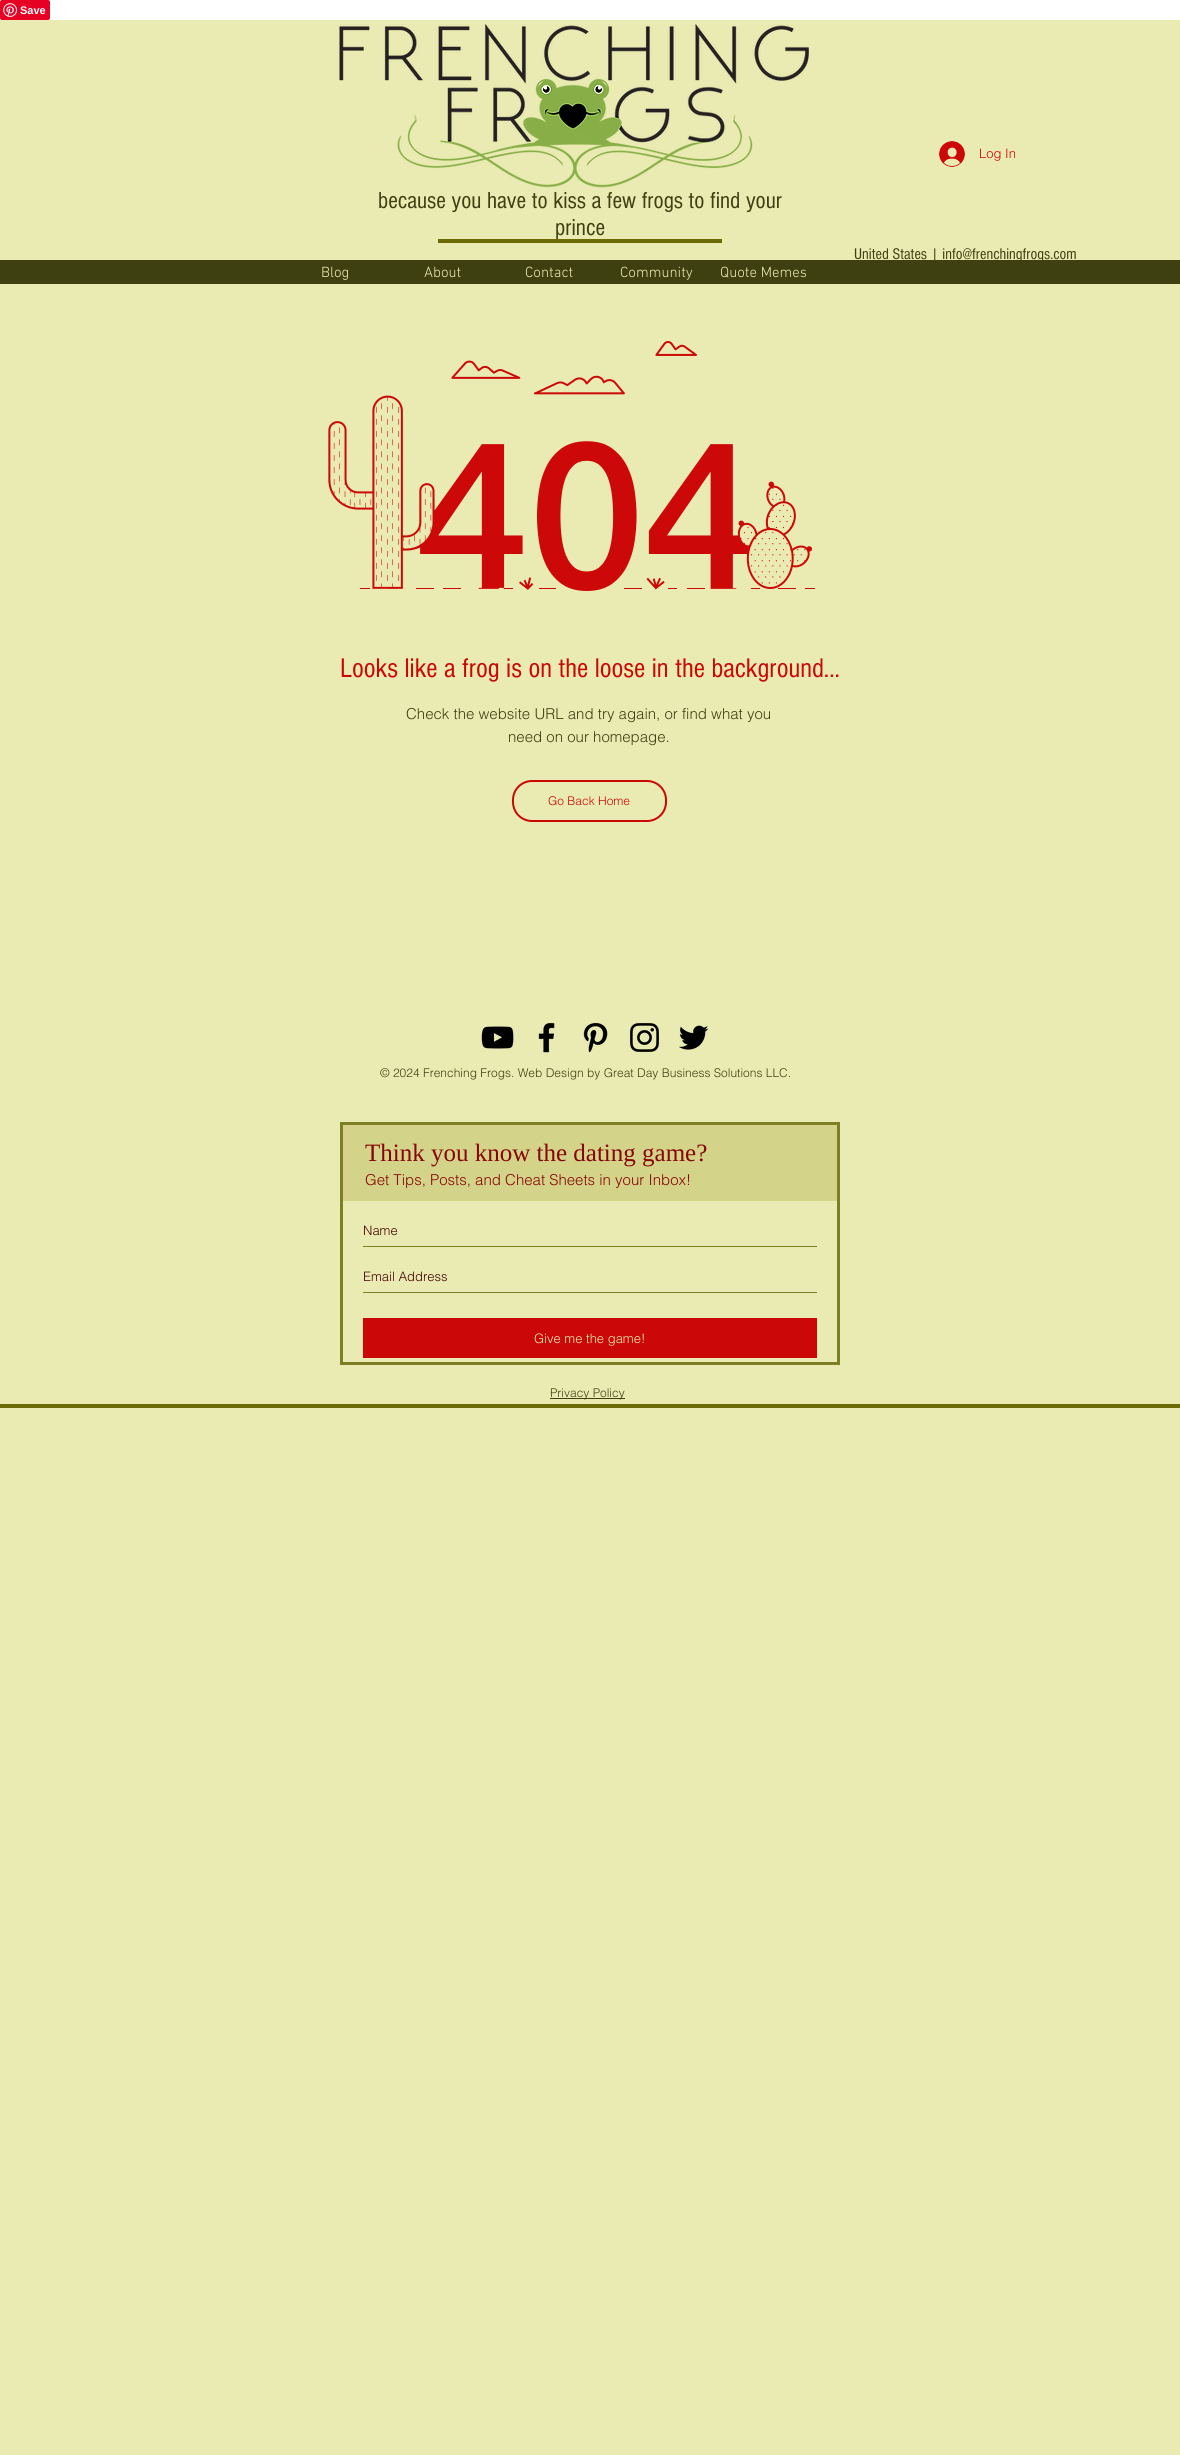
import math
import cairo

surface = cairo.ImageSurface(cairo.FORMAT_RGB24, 1180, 2455)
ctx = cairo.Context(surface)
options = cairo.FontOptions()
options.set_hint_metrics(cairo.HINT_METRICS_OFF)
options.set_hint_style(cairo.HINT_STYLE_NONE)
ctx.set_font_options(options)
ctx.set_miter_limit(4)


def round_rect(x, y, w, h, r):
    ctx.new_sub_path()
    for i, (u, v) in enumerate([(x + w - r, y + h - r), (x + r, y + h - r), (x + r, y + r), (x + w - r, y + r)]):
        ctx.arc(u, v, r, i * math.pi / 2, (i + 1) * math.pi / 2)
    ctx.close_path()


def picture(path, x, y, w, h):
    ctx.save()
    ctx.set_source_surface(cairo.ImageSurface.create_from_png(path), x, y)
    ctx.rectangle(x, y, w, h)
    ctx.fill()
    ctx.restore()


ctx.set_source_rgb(1, 1, 1)
ctx.paint()
ctx.set_source_rgb(0.902, 0, 0.137)
round_rect(0, 0, 50, 20, 2)
ctx.fill()
picture("img1.png", 3, 3, 14, 14)
ctx.select_font_face("Liberation Sans", cairo.FONT_SLANT_NORMAL, cairo.FONT_WEIGHT_BOLD)
ctx.set_font_size(11)
ctx.set_source_rgb(1, 1, 1)
ctx.move_to(20, 14)
ctx.show_text("Save")
ctx.set_source_rgb(0.914, 0.918, 0.698)
ctx.rectangle(0, 20, 1180, 2435)
ctx.fill()
picture("img2.png", 339, 24, 470, 164)
picture("img3.png", 939, 141, 26, 26)
ctx.select_font_face("helvetica Light")
ctx.set_font_size(13)
ctx.set_source_rgb(0.8, 0.031, 0.031)
ctx.move_to(979, 158)
ctx.show_text("Log In")
ctx.select_font_face("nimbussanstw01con")
ctx.set_font_size(24)
ctx.set_source_rgb(0.247, 0.251, 0.071)
ctx.move_to(378, 208)
ctx.show_text("because you have to kiss a few frogs to find your")
ctx.move_to(555, 235)
ctx.show_text("prince")
ctx.set_source_rgb(0.42, 0.42, 0.02)
ctx.rectangle(438, 239, 284, 4)
ctx.fill()
ctx.set_source_rgb(0.247, 0.251, 0.071)
ctx.rectangle(0, 260, 1180, 24)
ctx.fill()
ctx.set_font_size(16)
ctx.move_to(854, 259)
ctx.show_text("United States | info@frenchingfrogs.com")
ctx.select_font_face("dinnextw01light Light")
ctx.set_font_size(15)
ctx.set_source_rgb(0.914, 0.918, 0.698)
ctx.move_to(321, 277)
ctx.show_text("Blog")
ctx.move_to(424, 277)
ctx.show_text("About")
ctx.move_to(525, 277)
ctx.show_text("Contact")
ctx.move_to(620, 277)
ctx.show_text("Community")
ctx.move_to(720, 277)
ctx.show_text("Quote Memes")
picture("img4.png", 328, 341, 487, 250)
ctx.select_font_face("nimbussanstw01con")
ctx.set_font_size(28)
ctx.set_source_rgb(0.8, 0.031, 0.031)
ctx.move_to(340, 677)
ctx.show_text("Looks like a frog is on the loose in the background...")
ctx.select_font_face("helvetica Light")
ctx.set_font_size(15)
ctx.set_source_rgb(0.247, 0.251, 0.071)
ctx.move_to(406, 719)
ctx.show_text("Check the website URL and try again, or find what you")
ctx.move_to(508, 742)
ctx.show_text("need on our homepage.")
round_rect(513, 781, 153, 40, 19)
ctx.set_source_rgb(0.8, 0.031, 0.031)
ctx.stroke()
ctx.set_font_size(12)
ctx.move_to(548, 805)
ctx.show_text("Go Back Home")
picture("img5.png", 481, 1026, 33, 23)
picture("img6.png", 538, 1023, 17, 30)
picture("img7.png", 583, 1022, 25, 31)
picture("img8.png", 630, 1023, 29, 29)
picture("img9.png", 679, 1025, 30, 25)
ctx.set_source_rgb(0.247, 0.251, 0.071)
ctx.move_to(380, 1077)
ctx.show_text("© 2024 Frenching Frogs. Web Design by Great Day Business Solutions LLC.")
ctx.rectangle(341.5, 1123.5, 497, 240)
ctx.set_source_rgb(0.494, 0.498, 0.145)
ctx.set_line_width(3)
ctx.stroke()
ctx.set_source_rgb(0.827, 0.831, 0.537)
ctx.rectangle(343, 1125, 494, 76)
ctx.fill()
ctx.select_font_face("Liberation Serif")
ctx.set_font_size(25)
ctx.set_source_rgb(0.533, 0.02, 0.02)
ctx.move_to(365, 1161)
ctx.show_text("Think you know the dating game?")
ctx.select_font_face("helvetica Light")
ctx.set_font_size(15)
ctx.move_to(365, 1185)
ctx.show_text("Get Tips, Posts, and Cheat Sheets in your Inbox!")
ctx.set_source_rgb(0.494, 0.498, 0.145)
ctx.rectangle(363, 1246, 454, 1)
ctx.fill()
ctx.set_font_size(13)
ctx.set_source_rgb(0.267, 0.008, 0.008)
ctx.move_to(363, 1235)
ctx.show_text("Name")
ctx.set_source_rgb(0.494, 0.498, 0.145)
ctx.rectangle(363, 1292, 454, 1)
ctx.fill()
ctx.set_source_rgb(0.267, 0.008, 0.008)
ctx.move_to(363, 1281)
ctx.show_text("Email Address")
ctx.set_source_rgb(0.8, 0.031, 0.031)
ctx.rectangle(363, 1318, 454, 40)
ctx.fill()
ctx.set_source_rgb(0.914, 0.918, 0.698)
ctx.move_to(534, 1343)
ctx.show_text("Give me the game!")
ctx.set_source_rgb(0.247, 0.251, 0.071)
ctx.rectangle(550, 1398, 75, 1)
ctx.fill()
ctx.set_font_size(12)
ctx.move_to(550, 1397)
ctx.show_text("Privacy Policy")
ctx.set_source_rgb(0.42, 0.42, 0.02)
ctx.rectangle(0, 1404, 1180, 4)
ctx.fill()
surface.write_to_png("page.png")
